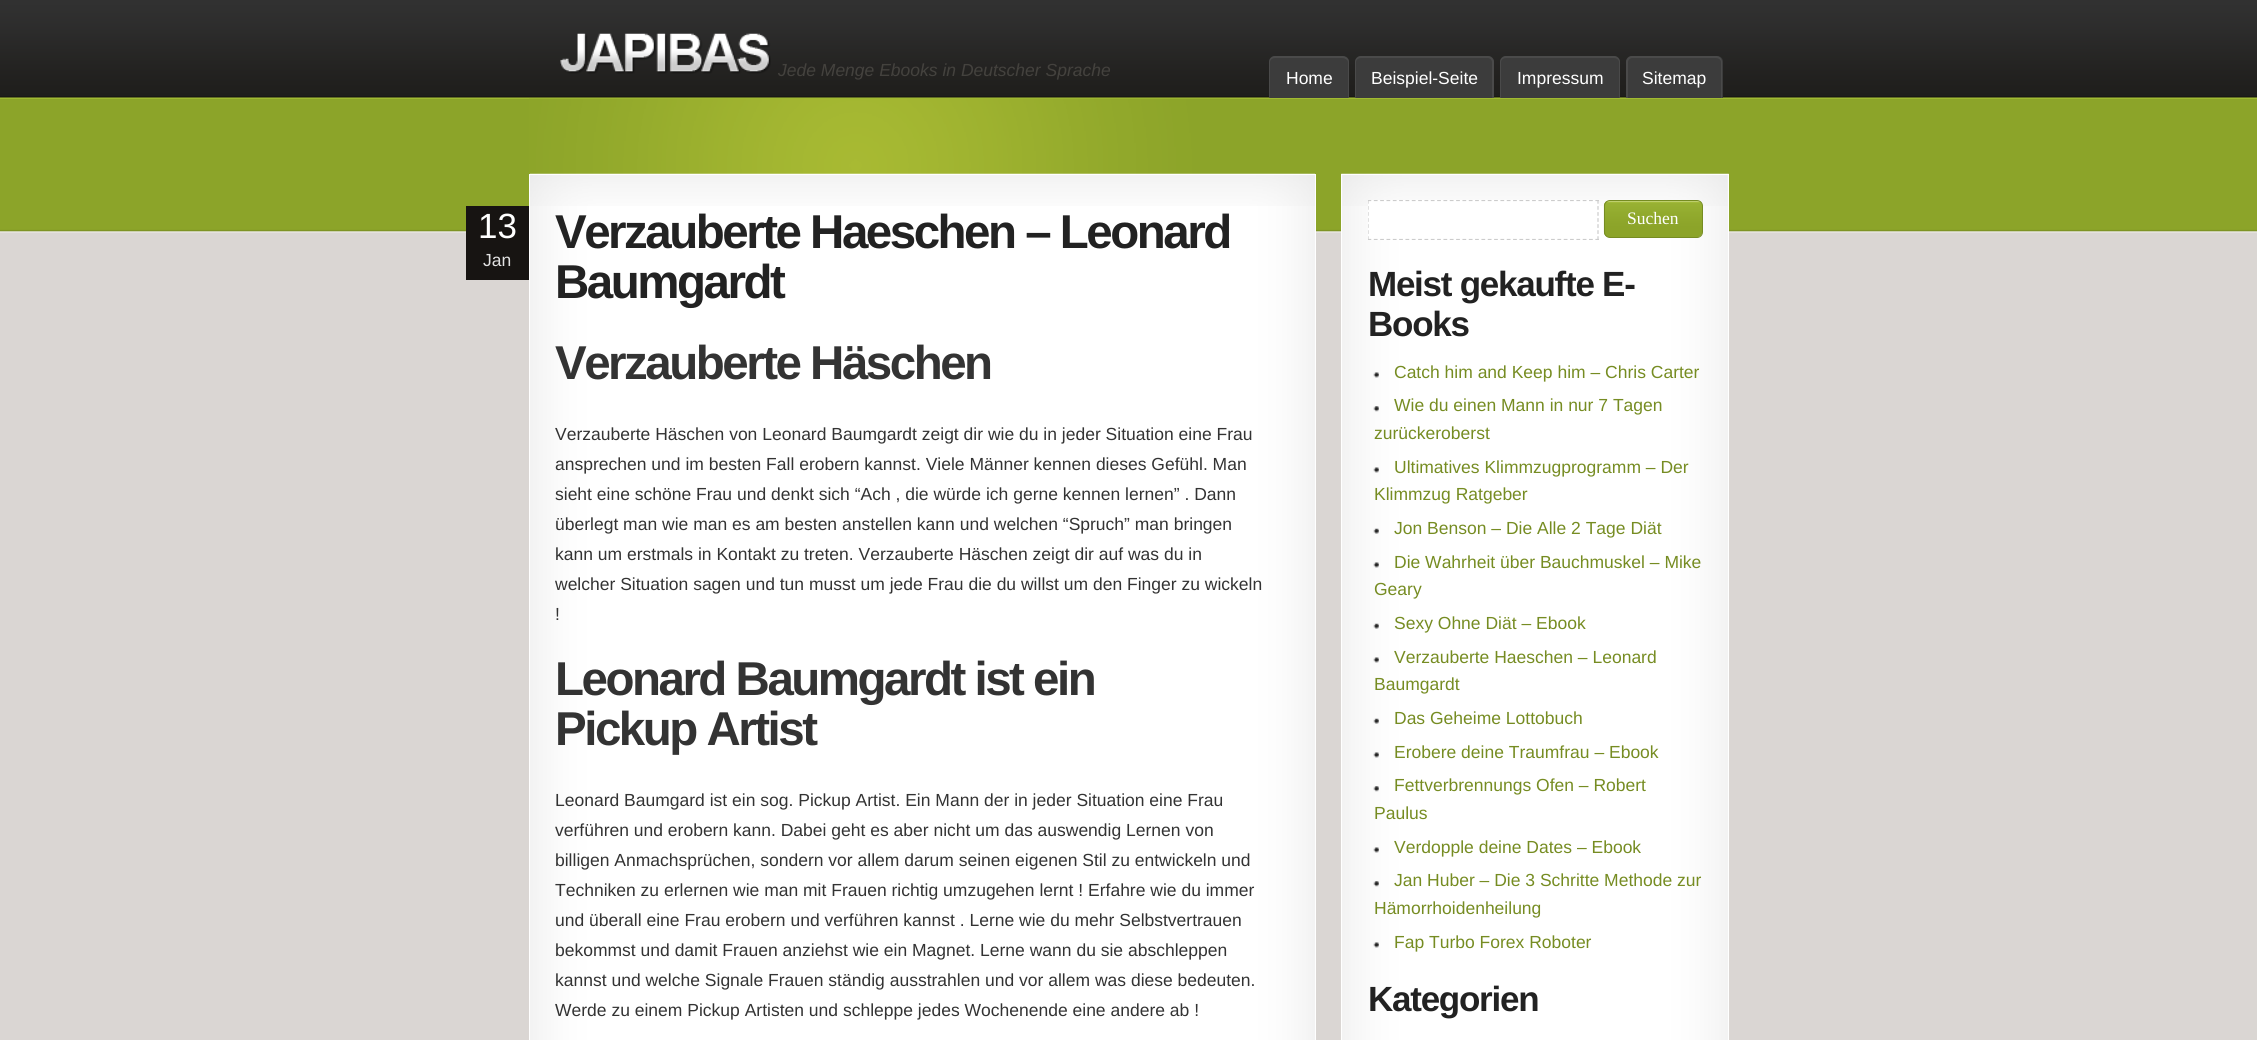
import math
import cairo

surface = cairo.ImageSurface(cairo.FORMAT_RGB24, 2257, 1040)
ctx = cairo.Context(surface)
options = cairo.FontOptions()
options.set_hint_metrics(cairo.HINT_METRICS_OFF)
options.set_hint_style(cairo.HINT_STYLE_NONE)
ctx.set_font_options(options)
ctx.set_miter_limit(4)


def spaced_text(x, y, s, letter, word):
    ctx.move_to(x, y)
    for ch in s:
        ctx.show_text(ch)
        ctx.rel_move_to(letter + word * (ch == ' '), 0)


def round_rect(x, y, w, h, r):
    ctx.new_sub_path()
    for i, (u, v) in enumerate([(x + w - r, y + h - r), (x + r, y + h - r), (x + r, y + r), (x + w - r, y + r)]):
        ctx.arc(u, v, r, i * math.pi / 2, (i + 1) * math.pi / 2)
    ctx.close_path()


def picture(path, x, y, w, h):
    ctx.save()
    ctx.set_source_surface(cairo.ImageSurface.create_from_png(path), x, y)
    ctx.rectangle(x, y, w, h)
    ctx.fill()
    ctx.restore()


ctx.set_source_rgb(0.855, 0.839, 0.827)
ctx.paint()
picture("img1.png", 0, 0, 2257, 233)
picture("img2.png", 560, 33, 211, 41)
ctx.select_font_face("Liberation Sans", cairo.FONT_SLANT_ITALIC)
ctx.set_font_size(17.5)
ctx.set_source_rgb(0.267, 0.259, 0.243)
ctx.move_to(778, 76)
ctx.show_text("Jede Menge Ebooks in Deutscher Sprache")
ctx.set_source_rgb(0.235, 0.235, 0.235)
ctx.new_path()
ctx.move_to(1275, 56)
ctx.line_to(1343, 56)
ctx.curve_to(1346.5, 56, 1349, 58.5, 1349, 62)
ctx.line_to(1349, 98)
ctx.line_to(1269, 98)
ctx.line_to(1269, 62)
ctx.curve_to(1269, 58.5, 1271.5, 56, 1275, 56)
ctx.close_path()
ctx.fill()
ctx.set_source_rgb(0.29, 0.29, 0.29)
ctx.set_fill_rule(cairo.FILL_RULE_EVEN_ODD)
ctx.new_path()
ctx.move_to(1275, 56)
ctx.line_to(1342, 56)
ctx.curve_to(1346, 56, 1349, 59, 1349, 62)
ctx.line_to(1349, 98)
ctx.line_to(1269, 98)
ctx.line_to(1269, 62)
ctx.curve_to(1269, 59, 1272, 56, 1275, 56)
ctx.close_path()
ctx.move_to(1275, 58)
ctx.line_to(1342, 58)
ctx.curve_to(1345, 58, 1348, 60, 1348, 62)
ctx.line_to(1348, 98)
ctx.line_to(1270, 98)
ctx.line_to(1270, 62)
ctx.curve_to(1270, 60, 1272, 58, 1275, 58)
ctx.close_path()
ctx.fill()
ctx.select_font_face("Liberation Sans")
ctx.set_source_rgb(1, 1, 1)
ctx.move_to(1286, 84)
ctx.show_text("Home")
ctx.set_source_rgb(0.235, 0.235, 0.235)
ctx.new_path()
ctx.move_to(1361, 56)
ctx.line_to(1488, 56)
ctx.curve_to(1491.5, 56, 1494, 58.5, 1494, 62)
ctx.line_to(1494, 98)
ctx.line_to(1355, 98)
ctx.line_to(1355, 62)
ctx.curve_to(1355, 58.5, 1357.5, 56, 1361, 56)
ctx.close_path()
ctx.fill()
ctx.set_source_rgb(0.29, 0.29, 0.29)
ctx.new_path()
ctx.move_to(1361, 56)
ctx.line_to(1488, 56)
ctx.curve_to(1491, 56, 1494, 59, 1494, 62)
ctx.line_to(1494, 98)
ctx.line_to(1355, 98)
ctx.line_to(1355, 62)
ctx.curve_to(1355, 59, 1358, 56, 1361, 56)
ctx.close_path()
ctx.move_to(1361, 58)
ctx.line_to(1488, 58)
ctx.curve_to(1490, 58, 1492, 60, 1492, 62)
ctx.line_to(1492, 98)
ctx.line_to(1356, 98)
ctx.line_to(1356, 62)
ctx.curve_to(1356, 60, 1358, 58, 1361, 58)
ctx.close_path()
ctx.fill()
ctx.set_source_rgb(1, 1, 1)
ctx.move_to(1371, 84)
ctx.show_text("Beispiel-Seite")
ctx.set_source_rgb(0.235, 0.235, 0.235)
ctx.new_path()
ctx.move_to(1506, 56)
ctx.line_to(1614, 56)
ctx.curve_to(1617.5, 56, 1620, 58.5, 1620, 62)
ctx.line_to(1620, 98)
ctx.line_to(1500, 98)
ctx.line_to(1500, 62)
ctx.curve_to(1500, 58.5, 1502.5, 56, 1506, 56)
ctx.close_path()
ctx.fill()
ctx.set_source_rgb(0.29, 0.29, 0.29)
ctx.new_path()
ctx.move_to(1506, 56)
ctx.line_to(1614, 56)
ctx.curve_to(1617, 56, 1620, 59, 1620, 62)
ctx.line_to(1620, 98)
ctx.line_to(1500, 98)
ctx.line_to(1500, 62)
ctx.curve_to(1500, 59, 1503, 56, 1506, 56)
ctx.close_path()
ctx.move_to(1506, 58)
ctx.line_to(1614, 58)
ctx.curve_to(1617, 58, 1619, 60, 1619, 62)
ctx.line_to(1619, 98)
ctx.line_to(1501, 98)
ctx.line_to(1501, 62)
ctx.curve_to(1501, 60, 1503, 58, 1506, 58)
ctx.close_path()
ctx.fill()
ctx.set_source_rgb(1, 1, 1)
ctx.move_to(1517, 84)
ctx.show_text("Impressum")
ctx.set_source_rgb(0.235, 0.235, 0.235)
ctx.new_path()
ctx.move_to(1632, 56)
ctx.line_to(1717, 56)
ctx.curve_to(1720.5, 56, 1723, 58.5, 1723, 62)
ctx.line_to(1723, 98)
ctx.line_to(1626, 98)
ctx.line_to(1626, 62)
ctx.curve_to(1626, 58.5, 1628.5, 56, 1632, 56)
ctx.close_path()
ctx.fill()
ctx.set_source_rgb(0.29, 0.29, 0.29)
ctx.new_path()
ctx.move_to(1632, 56)
ctx.line_to(1716, 56)
ctx.curve_to(1720, 56, 1722, 59, 1722, 62)
ctx.line_to(1722, 98)
ctx.line_to(1626, 98)
ctx.line_to(1626, 62)
ctx.curve_to(1626, 59, 1629, 56, 1632, 56)
ctx.close_path()
ctx.move_to(1632, 58)
ctx.line_to(1716, 58)
ctx.curve_to(1719, 58, 1721, 60, 1721, 62)
ctx.line_to(1721, 98)
ctx.line_to(1628, 98)
ctx.line_to(1628, 62)
ctx.curve_to(1628, 60, 1630, 58, 1632, 58)
ctx.close_path()
ctx.fill()
ctx.set_source_rgb(1, 1, 1)
ctx.move_to(1642, 84)
ctx.show_text("Sitemap")
picture("img3.png", 529, 98, 701, 76)
picture("img4.png", 530, 173, 785, 867)
ctx.rectangle(529.5, 174.5, 786, 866)
ctx.set_line_width(1)
ctx.stroke()
picture("img5.png", 530, 175, 785, 31)
ctx.set_source_rgb(0.09, 0.082, 0.071)
ctx.rectangle(466, 206, 63, 74)
ctx.fill()
ctx.set_font_size(35)
ctx.set_source_rgb(1, 1, 1)
ctx.move_to(478, 238)
ctx.show_text("13")
ctx.set_font_size(17.5)
ctx.set_source_rgb(0.886, 0.886, 0.886)
ctx.move_to(483, 266)
ctx.show_text("Jan")
ctx.select_font_face("Liberation Sans", cairo.FONT_SLANT_NORMAL, cairo.FONT_WEIGHT_BOLD)
ctx.set_font_size(47.5)
ctx.set_source_rgb(0.133, 0.133, 0.133)
spaced_text(555, 248, "Verzauberte Haeschen – Leonard", -2.5, 0)
spaced_text(555, 298, "Baumgardt", -2.5, 0)
ctx.set_source_rgb(0.2, 0.2, 0.2)
spaced_text(555, 379, "Verzauberte Häschen", -2.5, 0)
ctx.select_font_face("Liberation Sans")
ctx.set_font_size(17.5)
ctx.move_to(555, 440)
ctx.show_text("Verzauberte Häschen von Leonard Baumgardt zeigt dir wie du in jeder Situation eine Frau")
ctx.move_to(555, 470)
ctx.show_text("ansprechen und im besten Fall erobern kannst. Viele Männer kennen dieses Gefühl. Man")
ctx.move_to(555, 500)
ctx.show_text("sieht eine schöne Frau und denkt sich “Ach , die würde ich gerne kennen lernen” . Dann")
ctx.move_to(555, 530)
ctx.show_text("überlegt man wie man es am besten anstellen kann und welchen “Spruch” man bringen")
ctx.move_to(555, 560)
ctx.show_text("kann um erstmals in Kontakt zu treten. Verzauberte Häschen zeigt dir auf was du in")
ctx.move_to(555, 590)
ctx.show_text("welcher Situation sagen und tun musst um jede Frau die du willst um den Finger zu wickeln")
ctx.move_to(555, 620)
ctx.show_text("!")
ctx.select_font_face("Liberation Sans", cairo.FONT_SLANT_NORMAL, cairo.FONT_WEIGHT_BOLD)
ctx.set_font_size(47.5)
spaced_text(555, 695, "Leonard Baumgardt ist ein", -2.5, 0)
spaced_text(555, 745, "Pickup Artist", -2.5, 0)
ctx.select_font_face("Liberation Sans")
ctx.set_font_size(17.5)
ctx.move_to(555, 806)
ctx.show_text("Leonard Baumgard ist ein sog. Pickup Artist. Ein Mann der in jeder Situation eine Frau")
ctx.move_to(555, 836)
ctx.show_text("verführen und erobern kann. Dabei geht es aber nicht um das auswendig Lernen von")
ctx.move_to(555, 866)
ctx.show_text("billigen Anmachsprüchen, sondern vor allem darum seinen eigenen Stil zu entwickeln und")
ctx.move_to(555, 896)
ctx.show_text("Techniken zu erlernen wie man mit Frauen richtig umzugehen lernt ! Erfahre wie du immer")
ctx.move_to(555, 926)
ctx.show_text("und überall eine Frau erobern und verführen kannst . Lerne wie du mehr Selbstvertrauen")
ctx.move_to(555, 956)
ctx.show_text("bekommst und damit Frauen anziehst wie ein Magnet. Lerne wann du sie abschleppen")
ctx.move_to(555, 986)
ctx.show_text("kannst und welche Signale Frauen ständig ausstrahlen und vor allem was diese bedeuten.")
ctx.move_to(555, 1016)
ctx.show_text("Werde zu einem Pickup Artisten und schleppe jedes Wochenende eine andere ab !")
picture("img6.png", 1341, 173, 388, 867)
ctx.rectangle(1341.5, 174.5, 387, 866)
ctx.set_source_rgb(1, 1, 1)
ctx.stroke()
picture("img7.png", 1342, 175, 386, 31)
ctx.rectangle(1368, 200, 231, 40)
ctx.fill()
ctx.save()
ctx.set_fill_rule(cairo.FILL_RULE_WINDING)
ctx.rectangle(1368, 200, 335, 40)
ctx.clip()
ctx.new_path()
ctx.move_to(1367.5, 200.5)
ctx.line_to(1599, 200.5)
ctx.set_source_rgb(0.8, 0.8, 0.8)
ctx.set_line_width(1.2)
ctx.set_dash([3.75, 2.58])
ctx.stroke()
ctx.restore()
ctx.new_path()
ctx.move_to(1598, 200)
ctx.line_to(1598, 240)
ctx.set_source_rgb(0.8, 0.8, 0.8)
ctx.set_line_width(1.2)
ctx.set_dash([3.75, 2.29])
ctx.stroke()
ctx.save()
ctx.set_fill_rule(cairo.FILL_RULE_WINDING)
ctx.rectangle(1368, 200, 335, 40)
ctx.clip()
ctx.new_path()
ctx.move_to(1367.5, 239.5)
ctx.line_to(1599, 239.5)
ctx.set_dash([3.75, 2.58])
ctx.stroke()
ctx.new_path()
ctx.move_to(1368, 200)
ctx.line_to(1368, 240)
ctx.set_dash([3.75, 2.29])
ctx.stroke()
ctx.restore()
picture("img8.png", 1603, 201, 99, 37)
round_rect(1604.5, 200.5, 98, 37, 5.5)
ctx.set_source_rgb(0.463, 0.549, 0.133)
ctx.set_line_width(1)
ctx.set_dash([])
ctx.stroke()
ctx.select_font_face("Liberation Serif")
ctx.set_source_rgb(1, 1, 1)
ctx.move_to(1627, 224)
ctx.show_text("Suchen")
ctx.select_font_face("Liberation Sans", cairo.FONT_SLANT_NORMAL, cairo.FONT_WEIGHT_BOLD)
ctx.set_font_size(35)
ctx.set_source_rgb(0.133, 0.133, 0.133)
spaced_text(1368, 296, "Meist gekaufte E-", -1.25, 0)
spaced_text(1368, 336, "Books", -1.25, 0)
picture("img9.png", 1373, 372, 6, 6)
ctx.select_font_face("Liberation Sans")
ctx.set_font_size(17.5)
ctx.set_source_rgb(0.463, 0.549, 0.133)
ctx.move_to(1394, 378)
ctx.show_text("Catch him and Keep him – Chris Carter")
picture("img10.png", 1373, 406, 6, 6)
ctx.move_to(1394, 411)
ctx.show_text("Wie du einen Mann in nur 7 Tagen")
ctx.move_to(1374, 439)
ctx.show_text("zurückeroberst")
picture("img9.png", 1373, 467, 6, 6)
ctx.move_to(1394, 473)
ctx.show_text("Ultimatives Klimmzugprogramm – Der")
ctx.move_to(1374, 500)
ctx.show_text("Klimmzug Ratgeber")
picture("img11.png", 1373, 528, 6, 6)
ctx.move_to(1394, 534)
ctx.show_text("Jon Benson – Die Alle 2 Tage Diät")
picture("img9.png", 1373, 562, 6, 6)
ctx.move_to(1394, 568)
ctx.show_text("Die Wahrheit über Bauchmuskel – Mike")
ctx.move_to(1374, 595)
ctx.show_text("Geary")
picture("img11.png", 1373, 623, 6, 6)
ctx.move_to(1394, 629)
ctx.show_text("Sexy Ohne Diät – Ebook")
picture("img9.png", 1373, 657, 6, 6)
ctx.move_to(1394, 663)
ctx.show_text("Verzauberte Haeschen – Leonard")
ctx.move_to(1374, 690)
ctx.show_text("Baumgardt")
picture("img11.png", 1373, 718, 6, 6)
ctx.move_to(1394, 724)
ctx.show_text("Das Geheime Lottobuch")
picture("img9.png", 1373, 752, 6, 6)
ctx.move_to(1394, 758)
ctx.show_text("Erobere deine Traumfrau – Ebook")
picture("img10.png", 1373, 786, 6, 6)
ctx.move_to(1394, 791)
ctx.show_text("Fettverbrennungs Ofen – Robert")
ctx.move_to(1374, 819)
ctx.show_text("Paulus")
picture("img9.png", 1373, 847, 6, 6)
ctx.move_to(1394, 853)
ctx.show_text("Verdopple deine Dates – Ebook")
picture("img10.png", 1373, 881, 6, 6)
ctx.move_to(1394, 886)
ctx.show_text("Jan Huber – Die 3 Schritte Methode zur")
ctx.move_to(1374, 914)
ctx.show_text("Hämorrhoidenheilung")
picture("img9.png", 1373, 942, 6, 6)
ctx.move_to(1394, 948)
ctx.show_text("Fap Turbo Forex Roboter")
ctx.select_font_face("Liberation Sans", cairo.FONT_SLANT_NORMAL, cairo.FONT_WEIGHT_BOLD)
ctx.set_font_size(35)
ctx.set_source_rgb(0.133, 0.133, 0.133)
spaced_text(1368, 1011, "Kategorien", -1.25, 0)
surface.write_to_png("page.png")
